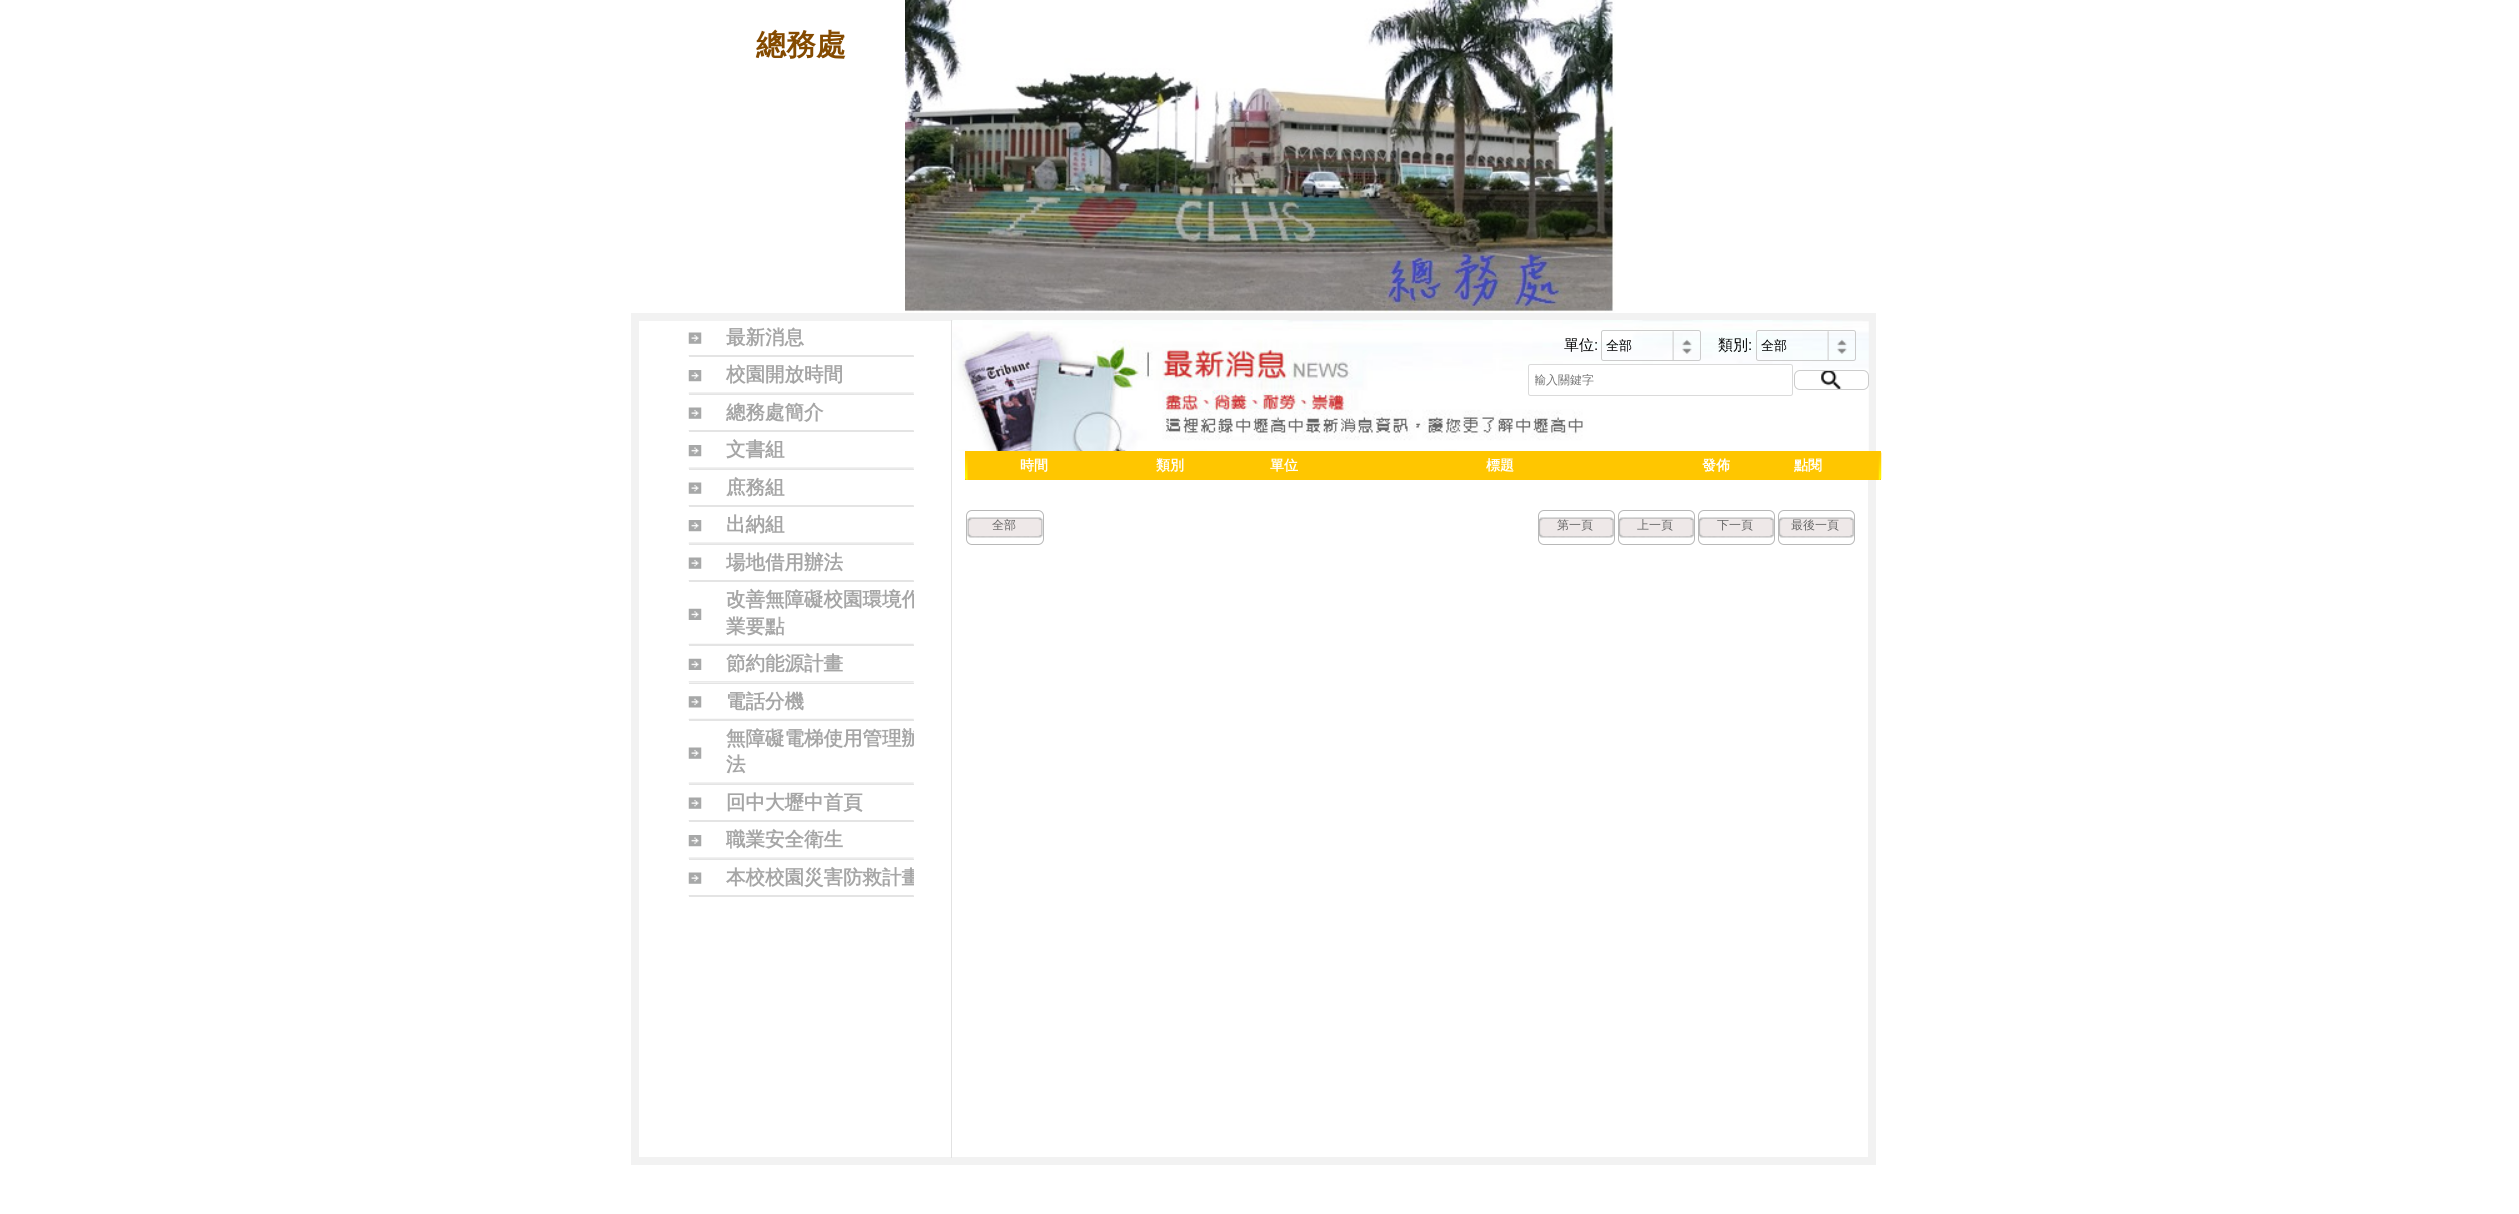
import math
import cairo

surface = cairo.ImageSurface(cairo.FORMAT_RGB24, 2519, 1214)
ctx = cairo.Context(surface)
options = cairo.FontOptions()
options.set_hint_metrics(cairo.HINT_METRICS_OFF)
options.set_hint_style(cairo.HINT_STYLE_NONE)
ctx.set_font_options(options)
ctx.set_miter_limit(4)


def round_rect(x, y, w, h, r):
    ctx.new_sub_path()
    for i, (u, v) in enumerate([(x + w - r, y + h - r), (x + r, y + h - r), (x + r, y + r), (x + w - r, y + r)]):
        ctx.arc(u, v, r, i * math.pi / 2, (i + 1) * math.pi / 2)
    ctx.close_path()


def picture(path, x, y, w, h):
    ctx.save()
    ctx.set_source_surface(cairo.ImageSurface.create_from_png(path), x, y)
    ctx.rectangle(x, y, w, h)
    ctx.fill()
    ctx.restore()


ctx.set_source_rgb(1, 1, 1)
ctx.paint()
picture("img1.png", 905, 0, 711, 313)
ctx.select_font_face("WenQuanYi Zen Hei", cairo.FONT_SLANT_NORMAL, cairo.FONT_WEIGHT_BOLD)
ctx.set_font_size(30)
ctx.set_source_rgb(0.518, 0.29, 0)
ctx.move_to(756, 55)
ctx.show_text("總務處")
ctx.rectangle(635, 317, 1237, 844)
ctx.set_source_rgb(0.949, 0.949, 0.949)
ctx.set_line_width(8)
ctx.stroke()
picture("img2.png", 688, 355, 226, 2)
ctx.set_source_rgb(0.894, 0.894, 0.894)
ctx.rectangle(689, 356, 225, 1)
ctx.fill()
picture("img3.png", 688, 332, 14, 12)
ctx.set_font_size(19.5)
ctx.set_source_rgb(0.651, 0.651, 0.651)
ctx.move_to(726, 344)
ctx.show_text("最新消息")
picture("img4.png", 688, 392, 226, 2)
ctx.set_source_rgb(0.894, 0.894, 0.894)
ctx.rectangle(689, 394, 225, 1)
ctx.fill()
picture("img5.png", 688, 370, 14, 12)
ctx.set_source_rgb(0.651, 0.651, 0.651)
ctx.move_to(726, 381)
ctx.show_text("校園開放時間")
picture("img2.png", 688, 430, 226, 2)
ctx.set_source_rgb(0.894, 0.894, 0.894)
ctx.rectangle(689, 431, 225, 1)
ctx.fill()
picture("img3.png", 688, 407, 14, 12)
ctx.set_source_rgb(0.651, 0.651, 0.651)
ctx.move_to(726, 419)
ctx.show_text("總務處簡介")
picture("img4.png", 688, 467, 226, 2)
ctx.set_source_rgb(0.894, 0.894, 0.894)
ctx.rectangle(689, 469, 225, 1)
ctx.fill()
picture("img5.png", 688, 445, 14, 12)
ctx.set_source_rgb(0.651, 0.651, 0.651)
ctx.move_to(726, 456)
ctx.show_text("文書組")
picture("img2.png", 688, 505, 226, 2)
ctx.set_source_rgb(0.894, 0.894, 0.894)
ctx.rectangle(689, 506, 225, 1)
ctx.fill()
picture("img3.png", 688, 482, 14, 12)
ctx.set_source_rgb(0.651, 0.651, 0.651)
ctx.move_to(726, 494)
ctx.show_text("庶務組")
picture("img4.png", 688, 542, 226, 2)
ctx.set_source_rgb(0.894, 0.894, 0.894)
ctx.rectangle(689, 544, 225, 1)
ctx.fill()
picture("img5.png", 688, 520, 14, 12)
ctx.set_source_rgb(0.651, 0.651, 0.651)
ctx.move_to(726, 531)
ctx.show_text("出納組")
picture("img2.png", 688, 580, 226, 2)
ctx.set_source_rgb(0.894, 0.894, 0.894)
ctx.rectangle(689, 581, 225, 1)
ctx.fill()
picture("img3.png", 688, 557, 14, 12)
ctx.set_source_rgb(0.651, 0.651, 0.651)
ctx.move_to(726, 569)
ctx.show_text("場地借用辦法")
picture("img6.png", 688, 643, 226, 2)
ctx.set_source_rgb(0.894, 0.894, 0.894)
ctx.rectangle(689, 645, 225, 1)
ctx.fill()
picture("img7.png", 688, 608, 14, 12)
ctx.save()
ctx.rectangle(689, 588, 225, 52)
ctx.clip()
ctx.set_source_rgb(0.651, 0.651, 0.651)
ctx.move_to(726, 606)
ctx.show_text("改善無障礙校園環境作")
ctx.restore()
ctx.set_source_rgb(0.651, 0.651, 0.651)
ctx.move_to(726, 633)
ctx.show_text("業要點")
picture("img8.png", 688, 681, 226, 2)
ctx.set_source_rgb(0.894, 0.894, 0.894)
ctx.rectangle(689, 683, 225, 1)
ctx.fill()
picture("img7.png", 688, 658, 14, 12)
ctx.set_source_rgb(0.651, 0.651, 0.651)
ctx.move_to(726, 670)
ctx.show_text("節約能源計畫")
picture("img6.png", 688, 718, 226, 2)
ctx.set_source_rgb(0.894, 0.894, 0.894)
ctx.rectangle(689, 720, 225, 1)
ctx.fill()
picture("img9.png", 688, 696, 14, 12)
ctx.set_source_rgb(0.651, 0.651, 0.651)
ctx.move_to(726, 708)
ctx.show_text("電話分機")
picture("img4.png", 688, 782, 226, 2)
ctx.set_source_rgb(0.894, 0.894, 0.894)
ctx.rectangle(689, 784, 225, 1)
ctx.fill()
picture("img3.png", 688, 747, 14, 12)
ctx.save()
ctx.rectangle(689, 726, 225, 53)
ctx.clip()
ctx.set_source_rgb(0.651, 0.651, 0.651)
ctx.move_to(726, 745)
ctx.show_text("無障礙電梯使用管理辦")
ctx.restore()
ctx.set_source_rgb(0.651, 0.651, 0.651)
ctx.move_to(726, 771)
ctx.show_text("法")
picture("img2.png", 688, 820, 226, 2)
ctx.set_source_rgb(0.894, 0.894, 0.894)
ctx.rectangle(689, 821, 225, 1)
ctx.fill()
picture("img3.png", 688, 797, 14, 12)
ctx.set_source_rgb(0.651, 0.651, 0.651)
ctx.move_to(726, 809)
ctx.show_text("回中大壢中首頁")
picture("img4.png", 688, 857, 226, 2)
ctx.set_source_rgb(0.894, 0.894, 0.894)
ctx.rectangle(689, 859, 225, 1)
ctx.fill()
picture("img5.png", 688, 835, 14, 12)
ctx.set_source_rgb(0.651, 0.651, 0.651)
ctx.move_to(726, 846)
ctx.show_text("職業安全衛生")
picture("img2.png", 688, 895, 226, 2)
ctx.set_source_rgb(0.894, 0.894, 0.894)
ctx.rectangle(689, 896, 225, 1)
ctx.fill()
picture("img3.png", 688, 872, 14, 12)
ctx.save()
ctx.rectangle(689, 865, 225, 26)
ctx.clip()
ctx.set_source_rgb(0.651, 0.651, 0.651)
ctx.move_to(726, 884)
ctx.show_text("本校校園災害防救計畫")
ctx.restore()
ctx.set_source_rgb(0.886, 0.886, 0.886)
ctx.rectangle(951, 320, 1, 838)
ctx.fill()
picture("img10.png", 952, 320, 917, 132)
ctx.select_font_face("WenQuanYi Zen Hei Medium")
ctx.set_font_size(15)
ctx.set_source_rgb(0, 0, 0)
ctx.move_to(1564, 350)
ctx.show_text("單位")
ctx.select_font_face("Liberation Sans")
ctx.move_to(1594, 350)
ctx.show_text(":")
picture("img11.png", 1672, 331, 20, 29)
round_rect(1601.5, 330.5, 99, 30, 2)
ctx.set_source_rgb(0.8, 0.8, 0.8)
ctx.set_line_width(1)
ctx.stroke()
ctx.select_font_face("WenQuanYi Zen Hei Medium")
ctx.set_font_size(13)
ctx.set_source_rgb(0, 0, 0)
ctx.move_to(1606, 350)
ctx.show_text("全部")
ctx.set_font_size(15)
ctx.move_to(1718, 350)
ctx.show_text("類別")
ctx.select_font_face("Liberation Sans")
ctx.move_to(1748, 350)
ctx.show_text(":")
picture("img12.png", 1827, 331, 20, 29)
round_rect(1756.5, 330.5, 99, 30, 2)
ctx.set_source_rgb(0.8, 0.8, 0.8)
ctx.stroke()
ctx.select_font_face("WenQuanYi Zen Hei Medium")
ctx.set_font_size(13)
ctx.set_source_rgb(0, 0, 0)
ctx.move_to(1761, 350)
ctx.show_text("全部")
ctx.set_source_rgb(1, 1, 1)
round_rect(1528.5, 364.5, 264, 31, 2)
ctx.fill_preserve()
ctx.set_source_rgb(0.855, 0.855, 0.855)
ctx.stroke()
ctx.save()
ctx.rectangle(1535, 374, 250, 16)
ctx.clip()
ctx.set_font_size(12)
ctx.set_source_rgb(0.459, 0.459, 0.459)
ctx.move_to(1534, 384)
ctx.show_text("輸入關鍵字")
ctx.restore()
ctx.set_source_rgb(1, 1, 1)
round_rect(1794, 370, 75, 20, 6)
ctx.fill()
picture("img13.png", 1821, 371, 21, 18)
round_rect(1794.5, 370.5, 74, 19, 5.5)
ctx.set_source_rgb(0.8, 0.8, 0.8)
ctx.stroke()
ctx.set_source_rgb(1, 0.776, 0)
ctx.rectangle(965, 451, 916, 29)
ctx.fill()
picture("img14.png", 965, 456, 3, 24)
picture("img15.png", 1878, 452, 4, 28)
ctx.select_font_face("WenQuanYi Zen Hei", cairo.FONT_SLANT_NORMAL, cairo.FONT_WEIGHT_BOLD)
ctx.set_font_size(14)
ctx.set_source_rgb(1, 1, 1)
ctx.move_to(1020, 470)
ctx.show_text("時間")
ctx.move_to(1156, 470)
ctx.show_text("類別")
ctx.move_to(1270, 470)
ctx.show_text("單位")
ctx.move_to(1486, 470)
ctx.show_text("標題")
ctx.move_to(1702, 470)
ctx.show_text("發佈")
ctx.move_to(1794, 470)
ctx.show_text("點閱")
picture("img16.png", 967, 517, 76, 21)
round_rect(966.5, 510.5, 77, 34, 5.5)
ctx.set_source_rgb(0.722, 0.722, 0.722)
ctx.stroke()
ctx.select_font_face("WenQuanYi Zen Hei Medium")
ctx.set_font_size(12)
ctx.set_source_rgb(0.396, 0.396, 0.396)
ctx.move_to(992, 529)
ctx.show_text("全部")
picture("img17.png", 1539, 517, 75, 21)
round_rect(1538.5, 510.5, 76, 34, 5.5)
ctx.set_source_rgb(0.722, 0.722, 0.722)
ctx.stroke()
ctx.set_source_rgb(0.396, 0.396, 0.396)
ctx.move_to(1557, 529)
ctx.show_text("第一頁")
picture("img18.png", 1619, 517, 75, 21)
round_rect(1618.5, 510.5, 76, 34, 5.5)
ctx.set_source_rgb(0.722, 0.722, 0.722)
ctx.stroke()
ctx.set_source_rgb(0.396, 0.396, 0.396)
ctx.move_to(1637, 529)
ctx.show_text("上一頁")
picture("img17.png", 1699, 517, 75, 21)
round_rect(1698.5, 510.5, 76, 34, 5.5)
ctx.set_source_rgb(0.722, 0.722, 0.722)
ctx.stroke()
ctx.set_source_rgb(0.396, 0.396, 0.396)
ctx.move_to(1717, 529)
ctx.show_text("下一頁")
picture("img17.png", 1779, 517, 75, 21)
round_rect(1778.5, 510.5, 76, 34, 5.5)
ctx.set_source_rgb(0.722, 0.722, 0.722)
ctx.stroke()
ctx.set_source_rgb(0.396, 0.396, 0.396)
ctx.move_to(1791, 529)
ctx.show_text("最後一頁")
surface.write_to_png("page.png")
